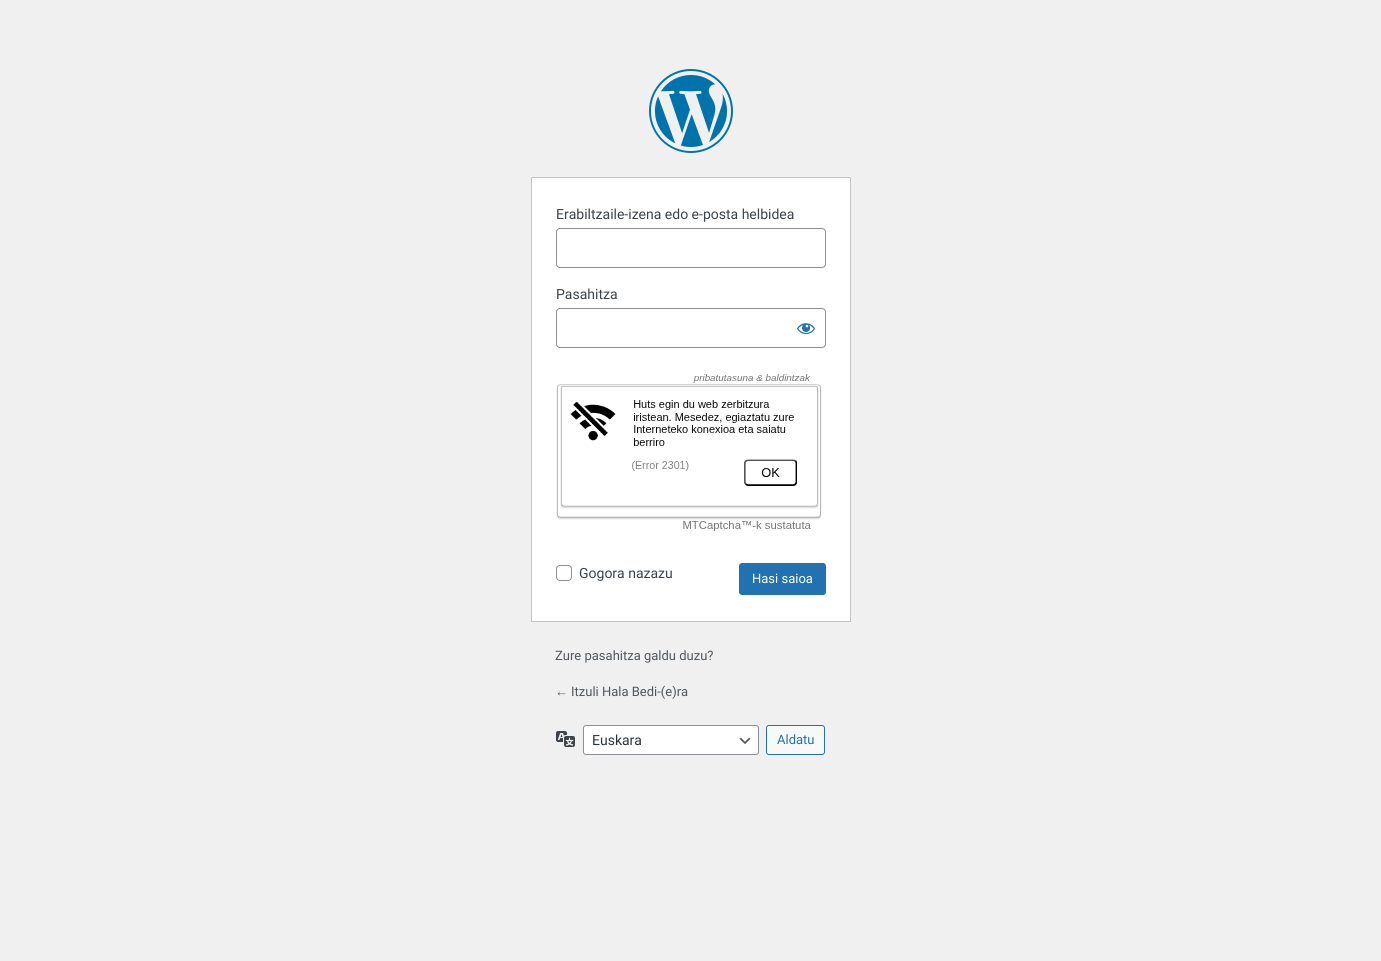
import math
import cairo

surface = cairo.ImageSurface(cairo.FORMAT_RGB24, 1381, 961)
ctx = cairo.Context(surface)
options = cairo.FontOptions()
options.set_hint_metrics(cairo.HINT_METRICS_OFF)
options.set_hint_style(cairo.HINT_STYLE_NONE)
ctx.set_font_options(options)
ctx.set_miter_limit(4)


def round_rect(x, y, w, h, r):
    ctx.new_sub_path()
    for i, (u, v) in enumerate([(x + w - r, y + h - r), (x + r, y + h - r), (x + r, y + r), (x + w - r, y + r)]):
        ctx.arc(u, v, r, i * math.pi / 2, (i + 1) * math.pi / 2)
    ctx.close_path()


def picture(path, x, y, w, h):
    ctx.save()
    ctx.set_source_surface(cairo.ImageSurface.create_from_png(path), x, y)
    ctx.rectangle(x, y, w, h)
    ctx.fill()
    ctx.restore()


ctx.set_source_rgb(0.941, 0.941, 0.945)
ctx.paint()
picture("img1.png", 649, 69, 84, 84)
ctx.set_source_rgb(1, 1, 1)
ctx.rectangle(531.5, 177.5, 319, 444)
ctx.fill_preserve()
ctx.set_source_rgb(0.765, 0.769, 0.78)
ctx.set_line_width(1)
ctx.stroke()
ctx.select_font_face("Roboto")
ctx.set_font_size(14)
ctx.set_source_rgb(0.235, 0.263, 0.29)
ctx.move_to(556, 219)
ctx.show_text("Erabiltzaile-izena edo e-posta helbidea")
round_rect(556.5, 228.5, 269, 39, 3.5)
ctx.set_source_rgb(0.549, 0.561, 0.58)
ctx.stroke()
ctx.set_source_rgb(0.235, 0.263, 0.29)
ctx.move_to(556, 299)
ctx.show_text("Pasahitza")
round_rect(556.5, 308.5, 269, 39, 3.5)
ctx.set_source_rgb(0.549, 0.561, 0.58)
ctx.stroke()
picture("img2.png", 797, 323, 18, 12)
picture("img3.png", 556, 374, 266, 157)
round_rect(556.5, 565.5, 15, 15, 3.5)
ctx.stroke()
ctx.set_source_rgb(0.235, 0.263, 0.29)
ctx.move_to(579, 578)
ctx.show_text("Gogora nazazu")
ctx.set_source_rgb(0.133, 0.443, 0.694)
round_rect(739.5, 563.5, 86, 31, 2.5)
ctx.fill_preserve()
ctx.stroke()
ctx.set_font_size(13)
ctx.set_source_rgb(1, 1, 1)
ctx.move_to(752, 583)
ctx.show_text("Hasi saioa")
ctx.set_source_rgb(0.314, 0.341, 0.369)
ctx.move_to(555, 660)
ctx.show_text("Zure pasahitza galdu duzu?")
ctx.select_font_face("Liberation Sans")
ctx.move_to(555, 696)
ctx.show_text("←")
ctx.select_font_face("Roboto")
ctx.move_to(571, 696)
ctx.show_text("Itzuli Hala Bedi-(e)ra")
picture("img4.png", 556, 731, 19, 16)
ctx.set_source_rgb(1, 1, 1)
round_rect(583, 725, 176, 30, 3)
ctx.fill()
picture("img5.png", 739, 737, 12, 7)
round_rect(583.5, 725.5, 175, 29, 2.5)
ctx.set_source_rgb(0.549, 0.561, 0.58)
ctx.stroke()
ctx.set_font_size(14)
ctx.set_source_rgb(0.173, 0.2, 0.22)
ctx.move_to(592, 745)
ctx.show_text("Euskara")
ctx.set_source_rgb(0.965, 0.969, 0.969)
round_rect(766.5, 725.5, 58, 29, 2.5)
ctx.fill_preserve()
ctx.set_source_rgb(0.133, 0.443, 0.694)
ctx.stroke()
ctx.set_font_size(13)
ctx.move_to(777, 744)
ctx.show_text("Aldatu")
surface.write_to_png("page.png")
